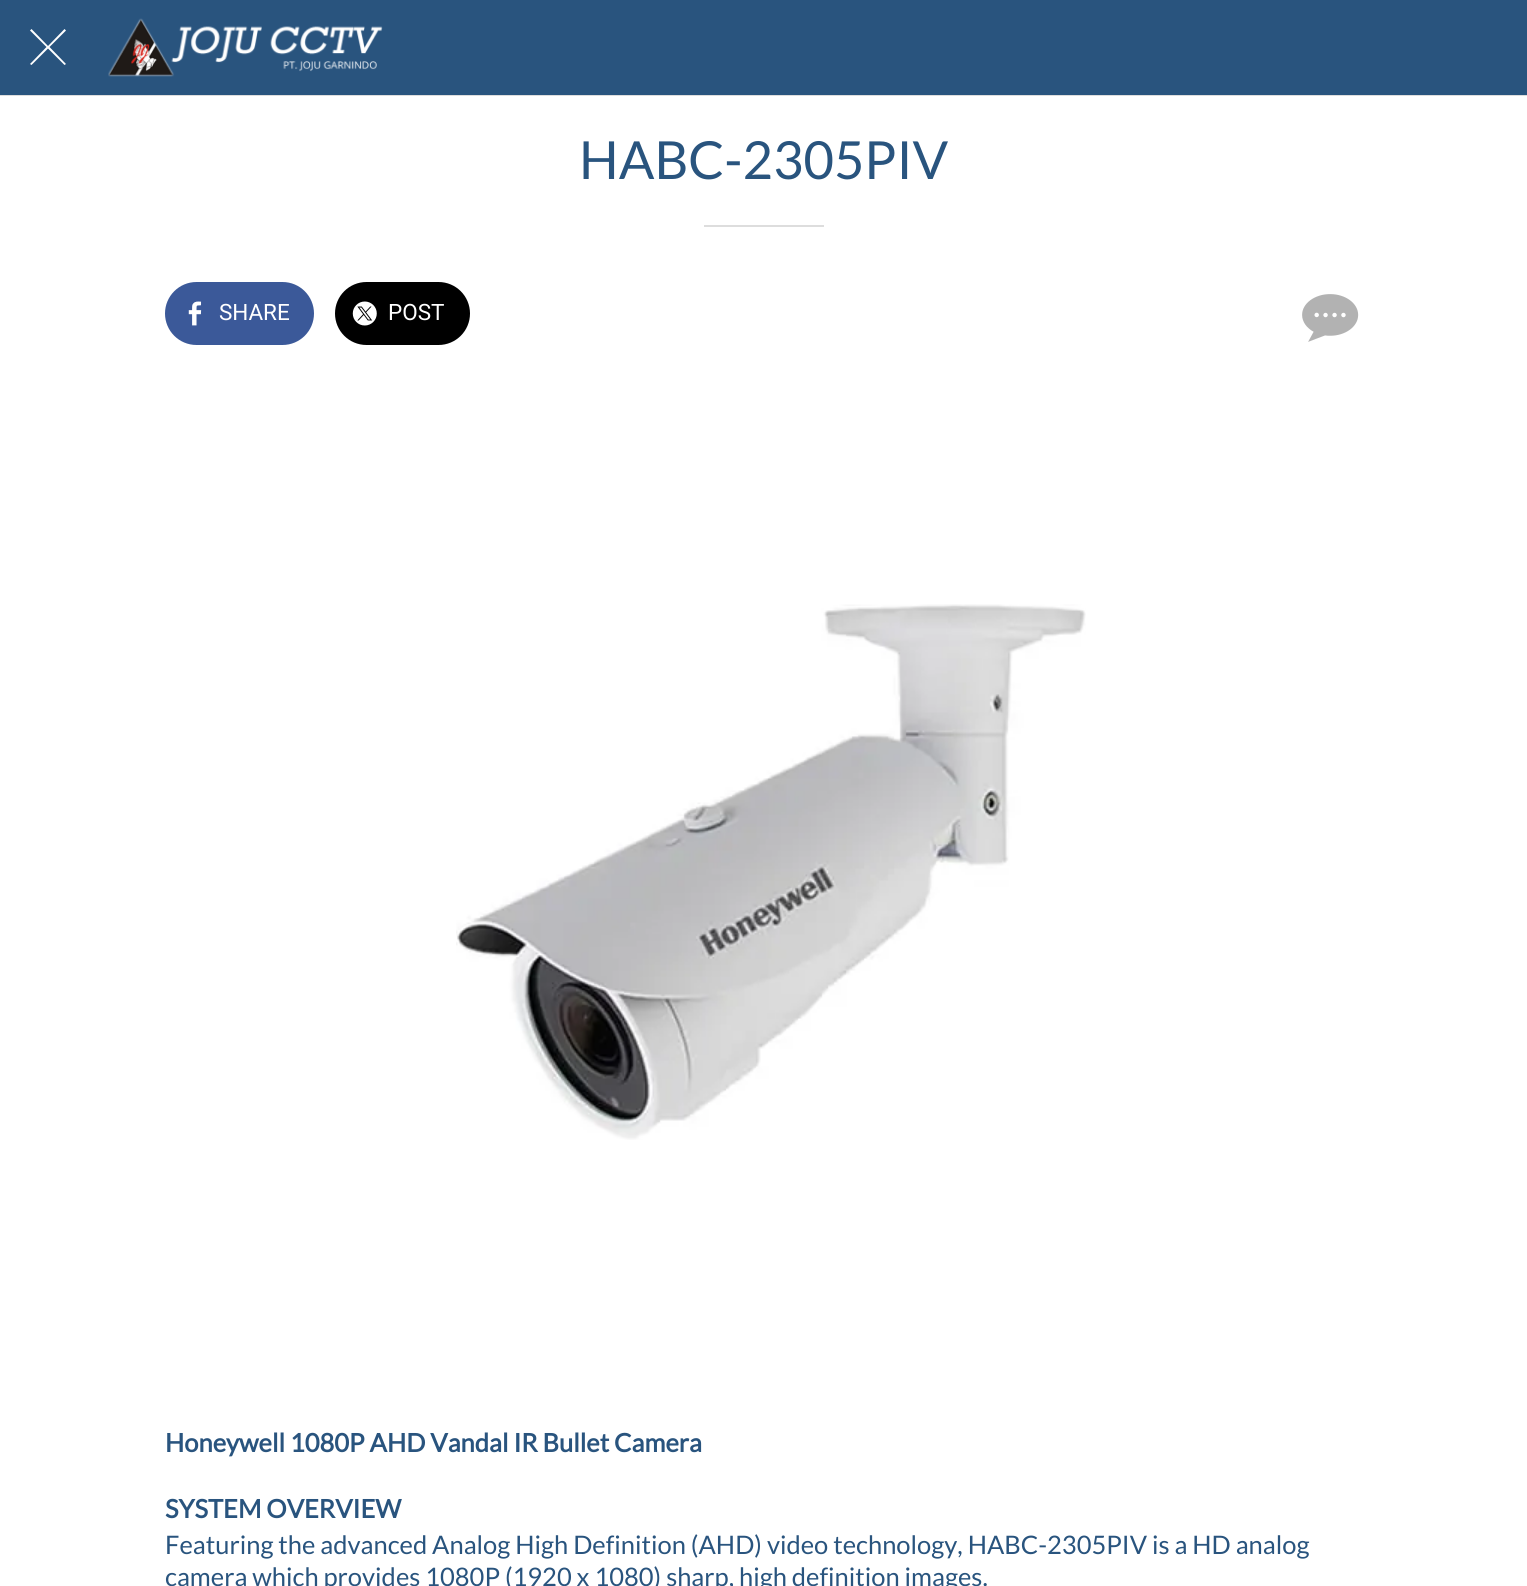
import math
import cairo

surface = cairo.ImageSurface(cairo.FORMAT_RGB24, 1527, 1586)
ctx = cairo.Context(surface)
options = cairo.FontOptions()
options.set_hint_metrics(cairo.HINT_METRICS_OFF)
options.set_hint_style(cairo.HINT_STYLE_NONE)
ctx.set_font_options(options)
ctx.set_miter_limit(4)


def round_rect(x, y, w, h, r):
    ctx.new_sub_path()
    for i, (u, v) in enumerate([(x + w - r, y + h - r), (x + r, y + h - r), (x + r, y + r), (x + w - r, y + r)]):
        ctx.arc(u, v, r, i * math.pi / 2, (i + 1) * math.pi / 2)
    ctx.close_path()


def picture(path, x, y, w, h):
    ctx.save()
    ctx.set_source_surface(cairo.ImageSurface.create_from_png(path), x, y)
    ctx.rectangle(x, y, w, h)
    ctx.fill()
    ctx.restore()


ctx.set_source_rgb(1, 1, 1)
ctx.paint()
ctx.set_source_rgb(0.161, 0.329, 0.494)
ctx.rectangle(0, 0, 1527, 95)
ctx.fill()
ctx.set_source_rgb(0.867, 0.867, 0.867)
ctx.rectangle(0, 95, 1527, 1)
ctx.fill()
ctx.set_source_rgb(1, 1, 1)
ctx.new_path()
ctx.move_to(66, 30.5)
ctx.line_to(64.5, 29)
ctx.line_to(48, 46)
ctx.line_to(31.5, 29)
ctx.line_to(30, 30.5)
ctx.line_to(46.5, 47)
ctx.line_to(30, 64)
ctx.line_to(31.5, 65)
ctx.line_to(48, 48.5)
ctx.line_to(64.5, 65)
ctx.line_to(66, 64)
ctx.line_to(49.5, 47)
ctx.close_path()
ctx.fill()
picture("img1.png", 108, 18, 275, 59)
ctx.select_font_face("Lato")
ctx.set_font_size(52.5)
ctx.set_source_rgb(0.161, 0.329, 0.494)
ctx.move_to(579, 179)
ctx.show_text("HABC-2305PIV")
ctx.set_source_rgb(0.867, 0.867, 0.867)
ctx.rectangle(704, 225, 120, 2)
ctx.fill()
ctx.set_source_rgb(0.231, 0.349, 0.6)
round_rect(165, 282, 149, 63, 31.5)
ctx.fill()
picture("img2.png", 188, 301, 14, 25)
ctx.select_font_face("Roboto")
ctx.set_font_size(22.5)
ctx.set_source_rgb(1, 1, 1)
ctx.move_to(219, 320)
ctx.show_text("SHARE")
ctx.set_source_rgb(0, 0, 0)
round_rect(335, 282, 135, 63, 31.5)
ctx.fill()
picture("img3.png", 352, 301, 25, 25)
ctx.set_source_rgb(1, 1, 1)
ctx.move_to(388, 320)
ctx.show_text("POST")
picture("img4.png", 1302, 294, 57, 48)
picture("img5.png", 456, 604, 630, 536)
ctx.select_font_face("Lato", cairo.FONT_SLANT_NORMAL, cairo.FONT_WEIGHT_BOLD)
ctx.set_font_size(25.5)
ctx.set_source_rgb(0.161, 0.329, 0.494)
ctx.move_to(165, 1452)
ctx.show_text("Honeywell 1080P AHD Vandal IR Bullet Camera")
ctx.move_to(165, 1518)
ctx.show_text("SYSTEM OVERVIEW")
ctx.select_font_face("Lato")
ctx.move_to(165, 1554)
ctx.show_text("Featuring the advanced Analog High Definition (AHD) video technology, HABC-2305PIV is a HD analog")
ctx.move_to(165, 1586)
ctx.show_text("camera which provides 1080P (1920 x 1080) sharp, high definition images.")
surface.write_to_png("page.png")
